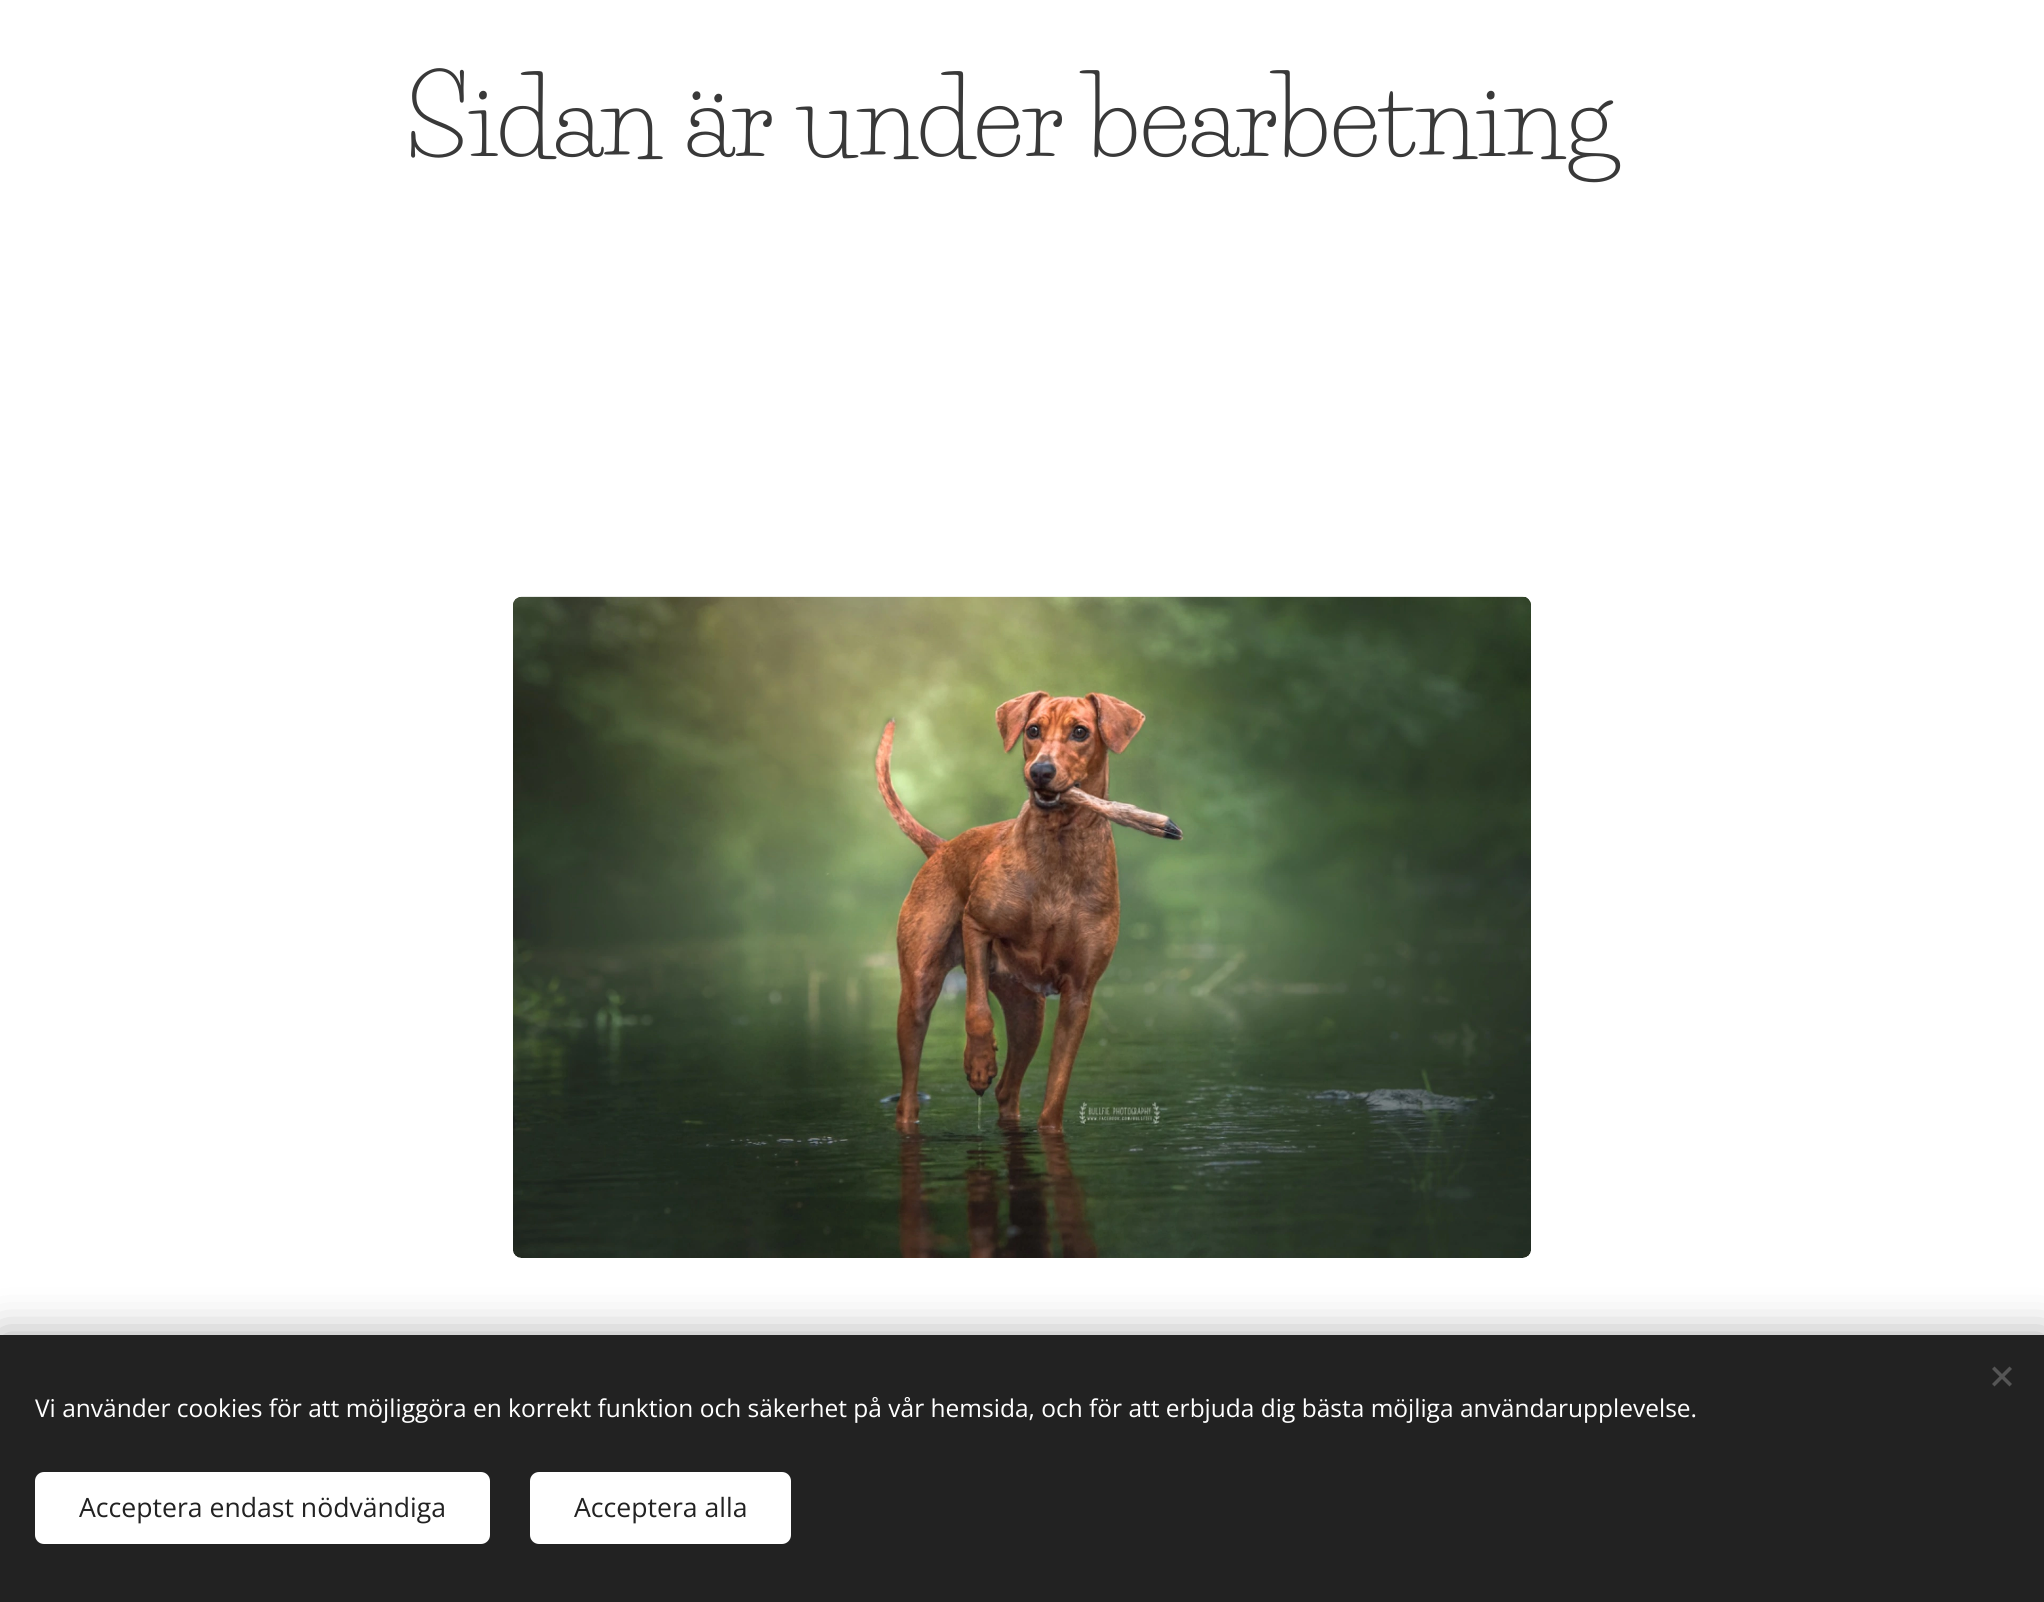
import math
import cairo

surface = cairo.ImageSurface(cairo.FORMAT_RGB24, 2044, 1602)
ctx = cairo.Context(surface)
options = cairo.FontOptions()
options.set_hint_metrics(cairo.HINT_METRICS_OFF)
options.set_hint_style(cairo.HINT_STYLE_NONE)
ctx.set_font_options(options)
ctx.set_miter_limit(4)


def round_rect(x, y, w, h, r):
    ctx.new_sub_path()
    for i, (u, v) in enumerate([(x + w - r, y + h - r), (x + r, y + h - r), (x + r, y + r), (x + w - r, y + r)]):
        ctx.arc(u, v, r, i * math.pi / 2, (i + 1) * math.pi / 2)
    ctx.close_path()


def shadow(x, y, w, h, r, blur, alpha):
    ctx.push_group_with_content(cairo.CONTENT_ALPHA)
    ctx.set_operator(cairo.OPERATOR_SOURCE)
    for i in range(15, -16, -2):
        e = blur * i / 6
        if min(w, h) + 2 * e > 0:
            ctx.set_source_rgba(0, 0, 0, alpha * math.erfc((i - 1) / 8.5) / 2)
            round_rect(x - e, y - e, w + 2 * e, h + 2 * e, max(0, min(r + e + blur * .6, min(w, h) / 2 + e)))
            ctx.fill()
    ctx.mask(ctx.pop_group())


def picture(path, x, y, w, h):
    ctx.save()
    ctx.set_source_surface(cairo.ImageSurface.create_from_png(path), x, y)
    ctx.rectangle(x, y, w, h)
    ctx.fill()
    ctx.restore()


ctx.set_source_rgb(1, 1, 1)
ctx.paint()
ctx.select_font_face("Life Savers")
ctx.set_font_size(105)
ctx.set_source_rgb(0.224, 0.224, 0.224)
ctx.move_to(406, 156)
ctx.show_text("Sidan är under bearbetning")
picture("img1.png", 513, 596, 1018, 662)
ctx.set_source_rgb(0, 0, 0)
shadow(0, 1335, 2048, 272, 0, 22, 0.33)
ctx.set_source_rgb(0.133, 0.133, 0.133)
ctx.rectangle(0, 1335, 2044, 267)
ctx.fill()
ctx.set_source_rgb(0.333, 0.333, 0.333)
ctx.new_path()
ctx.move_to(1992, 1384)
ctx.line_to(2009.5, 1366.5)
ctx.line_to(2012, 1369)
ctx.line_to(1994.5, 1386.5)
ctx.close_path()
ctx.fill()
ctx.new_path()
ctx.move_to(1994.5, 1366.5)
ctx.line_to(2012, 1384)
ctx.line_to(2009.5, 1386.5)
ctx.line_to(1992, 1369)
ctx.close_path()
ctx.fill()
ctx.select_font_face("Open Sans")
ctx.set_font_size(24.5)
ctx.set_source_rgb(1, 1, 1)
ctx.move_to(35, 1417)
ctx.show_text("Vi använder cookies för att möjliggöra en korrekt funktion och säkerhet på vår hemsida, och för att erbjuda dig bästa möjliga användarupplevelse.")
round_rect(35, 1472, 455, 72, 9)
ctx.fill()
ctx.set_font_size(26.6)
ctx.set_source_rgb(0.133, 0.133, 0.133)
ctx.move_to(79, 1517)
ctx.show_text("Acceptera endast nödvändiga")
ctx.set_source_rgb(1, 1, 1)
round_rect(530, 1472, 261, 72, 9)
ctx.fill()
ctx.set_source_rgb(0.133, 0.133, 0.133)
ctx.move_to(574, 1517)
ctx.show_text("Acceptera alla")
surface.write_to_png("page.png")
